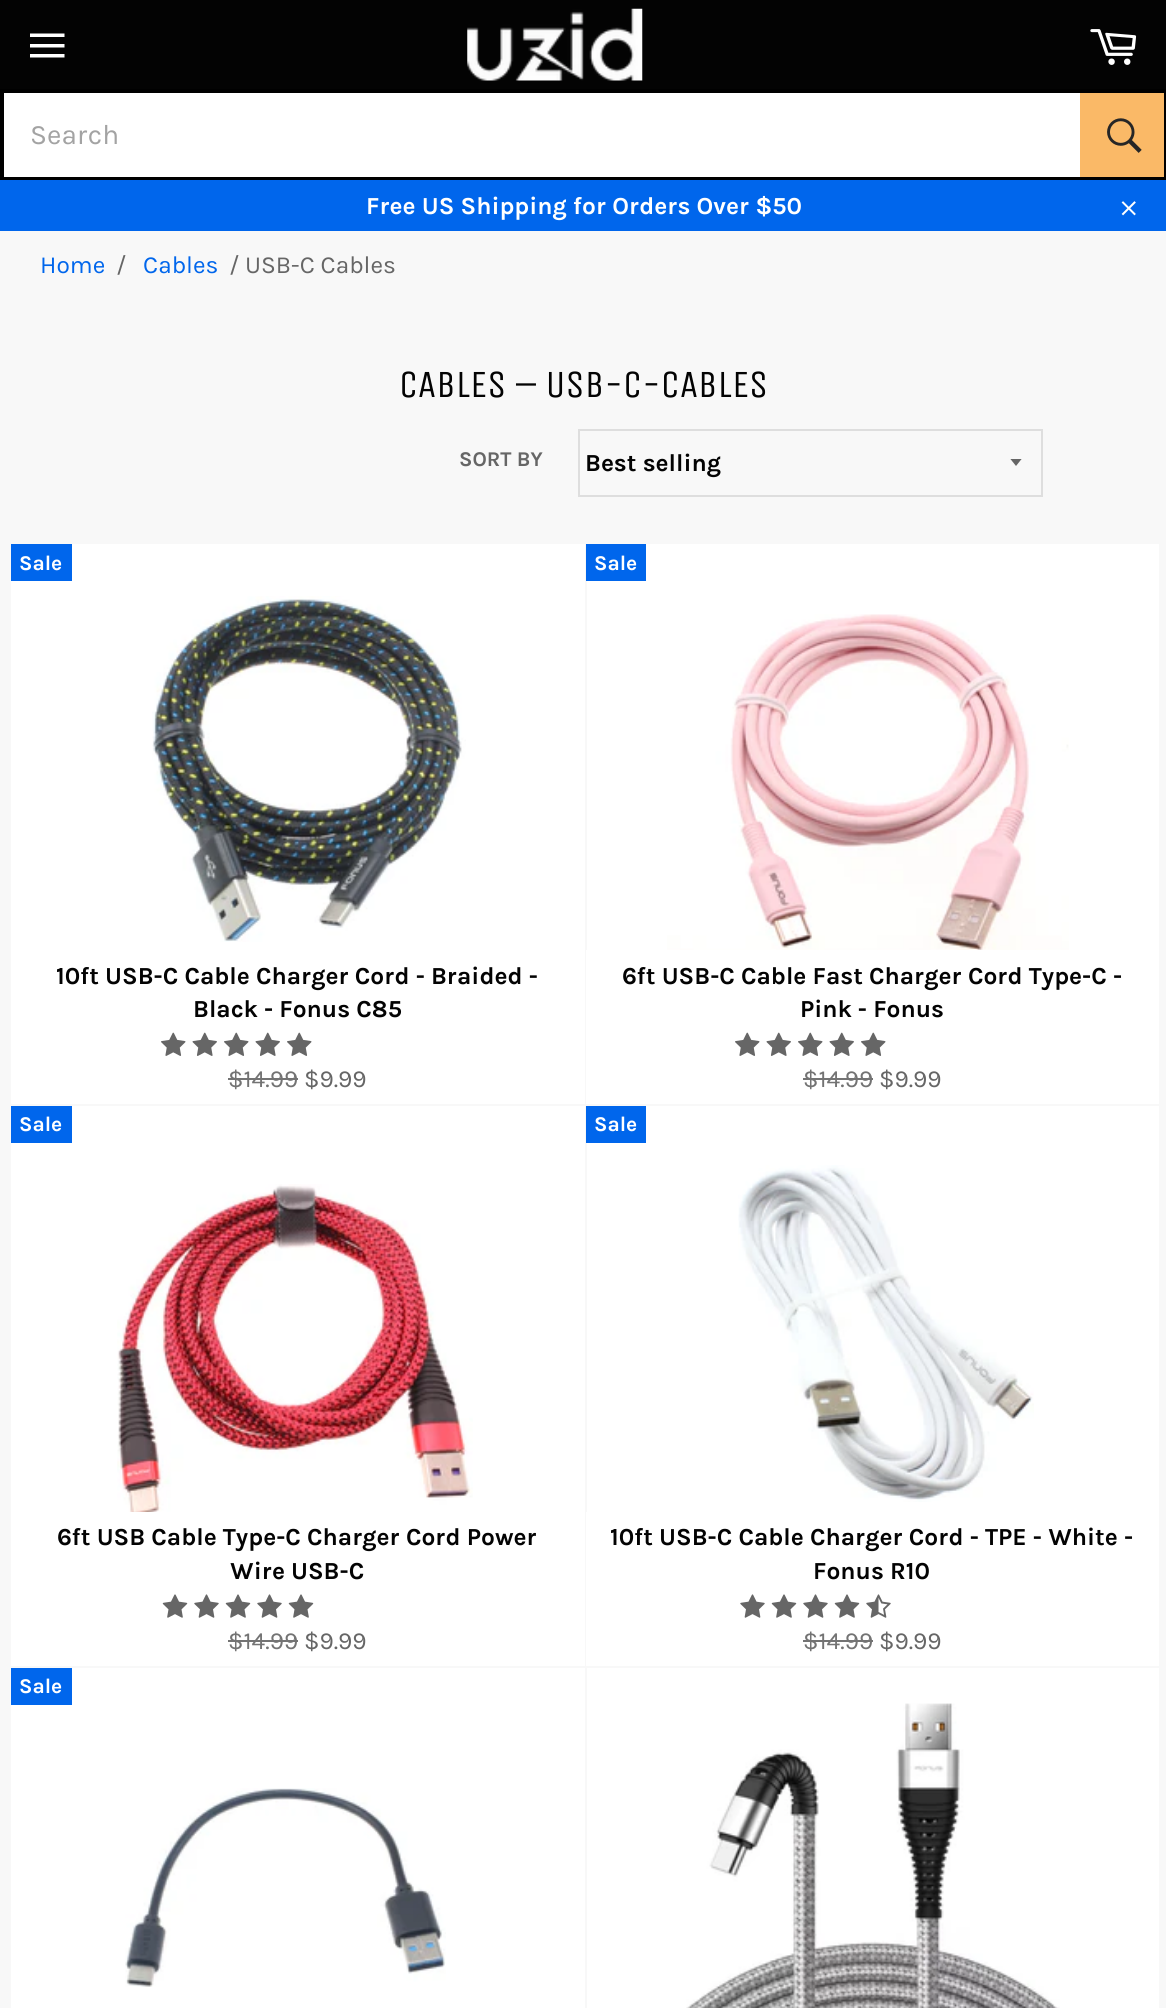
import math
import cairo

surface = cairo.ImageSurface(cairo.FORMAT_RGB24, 1166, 2008)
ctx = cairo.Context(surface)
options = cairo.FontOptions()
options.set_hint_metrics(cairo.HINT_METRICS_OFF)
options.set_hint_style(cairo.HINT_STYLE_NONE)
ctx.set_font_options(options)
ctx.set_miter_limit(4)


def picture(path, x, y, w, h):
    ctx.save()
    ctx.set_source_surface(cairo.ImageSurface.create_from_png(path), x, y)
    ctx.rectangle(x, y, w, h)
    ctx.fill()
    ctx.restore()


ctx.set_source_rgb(0.969, 0.969, 0.969)
ctx.paint()
ctx.set_source_rgb(0.012, 0.012, 0.012)
ctx.rectangle(0, 0, 1166, 89)
ctx.fill()
ctx.set_source_rgb(1, 1, 1)
ctx.new_path()
ctx.move_to(30, 44)
ctx.line_to(64.5, 44)
ctx.line_to(64.5, 47.5)
ctx.line_to(30, 47.5)
ctx.close_path()
ctx.move_to(30, 33.5)
ctx.line_to(64.5, 33.5)
ctx.line_to(64.5, 37)
ctx.line_to(30, 37)
ctx.close_path()
ctx.move_to(30, 54)
ctx.line_to(64.5, 54)
ctx.line_to(64.5, 57.5)
ctx.line_to(30, 57.5)
ctx.close_path()
ctx.fill()
picture("img1.png", 467, 8, 176, 73)
picture("img2.png", 1090, 29, 47, 36)
ctx.rectangle(2, 91, 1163, 87)
ctx.set_source_rgb(0, 0, 0)
ctx.set_line_width(4)
ctx.stroke()
ctx.set_source_rgb(1, 1, 1)
ctx.rectangle(4, 93, 1076, 84)
ctx.fill()
ctx.select_font_face("Karla")
ctx.set_font_size(28)
ctx.set_source_rgb(0.639, 0.639, 0.639)
ctx.move_to(30, 144)
ctx.show_text("Search")
ctx.set_source_rgb(0.98, 0.725, 0.404)
ctx.rectangle(1080, 93, 84, 84)
ctx.fill()
picture("img3.png", 1107, 118, 35, 35)
ctx.set_source_rgb(0, 0.4, 0.922)
ctx.rectangle(0, 180, 1166, 51)
ctx.fill()
ctx.select_font_face("Karla", cairo.FONT_SLANT_NORMAL, cairo.FONT_WEIGHT_BOLD)
ctx.set_font_size(24.5)
ctx.set_source_rgb(1, 1, 1)
ctx.move_to(366, 214)
ctx.show_text("Free US Shipping for Orders Over $50")
picture("img4.png", 1121, 201, 15, 15)
ctx.select_font_face("Karla")
ctx.set_source_rgb(0, 0.4, 0.922)
ctx.move_to(40, 273)
ctx.show_text("Home")
ctx.set_source_rgb(0.4, 0.4, 0.4)
ctx.move_to(116, 273)
ctx.show_text("/")
ctx.set_source_rgb(0, 0.4, 0.922)
ctx.move_to(143, 273)
ctx.show_text("Cables")
ctx.set_source_rgb(0.4, 0.4, 0.4)
ctx.move_to(229, 273)
ctx.show_text("/")
ctx.move_to(245, 273)
ctx.show_text("USB-C Cables")
ctx.select_font_face("Unica One")
ctx.set_font_size(38.5)
ctx.set_source_rgb(0.012, 0.012, 0.012)
ctx.move_to(399, 397)
ctx.show_text("CABLES – USB-C-CABLES")
ctx.select_font_face("Karla", cairo.FONT_SLANT_NORMAL, cairo.FONT_WEIGHT_BOLD)
ctx.set_font_size(21)
ctx.set_source_rgb(0.4, 0.4, 0.4)
ctx.move_to(459, 466)
ctx.show_text("SORT BY")
ctx.save()
ctx.rectangle(1010, 459, 14, 8)
ctx.clip()
ctx.new_path()
ctx.move_to(1010, 458.5)
ctx.line_to(1016, 466)
ctx.line_to(1022, 458.5)
ctx.close_path()
ctx.fill()
ctx.restore()
ctx.rectangle(579, 430, 463, 66)
ctx.set_source_rgb(0.871, 0.871, 0.871)
ctx.set_line_width(2)
ctx.stroke()
ctx.set_font_size(24.5)
ctx.set_source_rgb(0.012, 0.012, 0.012)
ctx.move_to(585, 471)
ctx.show_text("Best selling")
ctx.set_source_rgb(1, 1, 1)
ctx.rectangle(11, 544, 574, 560)
ctx.fill()
ctx.set_source_rgb(0, 0.4, 0.922)
ctx.rectangle(11, 544, 61, 37)
ctx.fill()
ctx.set_font_size(21)
ctx.set_source_rgb(1, 1, 1)
ctx.move_to(19, 570)
ctx.show_text("Sale")
picture("img5.png", 152, 596, 314, 346)
ctx.set_font_size(24.5)
ctx.set_source_rgb(0.012, 0.012, 0.012)
ctx.move_to(56, 984)
ctx.show_text("10ft USB-C Cable Charger Cord - Braided -")
ctx.move_to(193, 1017)
ctx.show_text("Black - Fonus C85")
picture("img6.png", 161, 1032, 25, 24)
picture("img7.png", 192, 1032, 25, 24)
picture("img6.png", 224, 1032, 25, 24)
picture("img7.png", 255, 1032, 25, 24)
picture("img6.png", 287, 1032, 25, 24)
ctx.select_font_face("Karla")
ctx.set_source_rgb(0.451, 0.451, 0.451)
ctx.move_to(228, 1087)
ctx.show_text("$14.99")
ctx.rectangle(228, 1078, 70, 2)
ctx.fill()
ctx.set_source_rgb(0.4, 0.4, 0.4)
ctx.move_to(304, 1087)
ctx.show_text("$9.99")
ctx.set_source_rgb(1, 1, 1)
ctx.rectangle(587, 544, 572, 406)
ctx.fill()
ctx.set_source_rgb(0, 0.4, 0.922)
ctx.rectangle(586, 544, 60, 37)
ctx.fill()
ctx.select_font_face("Karla", cairo.FONT_SLANT_NORMAL, cairo.FONT_WEIGHT_BOLD)
ctx.set_font_size(21)
ctx.set_source_rgb(1, 1, 1)
ctx.move_to(594, 570)
ctx.show_text("Sale")
picture("img8.png", 667, 614, 402, 336)
ctx.rectangle(586, 950, 573, 154)
ctx.fill()
ctx.set_font_size(24.5)
ctx.set_source_rgb(0.012, 0.012, 0.012)
ctx.move_to(622, 984)
ctx.show_text("6ft USB-C Cable Fast Charger Cord Type-C -")
ctx.move_to(800, 1017)
ctx.show_text("Pink - Fonus")
picture("img6.png", 735, 1032, 25, 24)
picture("img7.png", 766, 1032, 25, 24)
picture("img6.png", 798, 1032, 25, 24)
picture("img7.png", 829, 1032, 25, 24)
picture("img6.png", 861, 1032, 25, 24)
ctx.select_font_face("Karla")
ctx.set_source_rgb(0.451, 0.451, 0.451)
ctx.move_to(803, 1087)
ctx.show_text("$14.99")
ctx.rectangle(803, 1078, 70, 2)
ctx.fill()
ctx.set_source_rgb(0.4, 0.4, 0.4)
ctx.move_to(879, 1087)
ctx.show_text("$9.99")
ctx.set_source_rgb(1, 1, 1)
ctx.rectangle(11, 1106, 574, 560)
ctx.fill()
ctx.set_source_rgb(0, 0.4, 0.922)
ctx.rectangle(11, 1106, 61, 37)
ctx.fill()
ctx.select_font_face("Karla", cairo.FONT_SLANT_NORMAL, cairo.FONT_WEIGHT_BOLD)
ctx.set_font_size(21)
ctx.set_source_rgb(1, 1, 1)
ctx.move_to(19, 1131)
ctx.show_text("Sale")
picture("img9.png", 117, 1184, 356, 328)
ctx.set_font_size(24.5)
ctx.set_source_rgb(0.012, 0.012, 0.012)
ctx.move_to(57, 1545)
ctx.show_text("6ft USB Cable Type-C Charger Cord Power")
ctx.move_to(230, 1579)
ctx.show_text("Wire USB-C")
picture("img10.png", 162, 1594, 26, 24)
picture("img11.png", 194, 1594, 25, 24)
picture("img10.png", 225, 1594, 26, 24)
picture("img11.png", 257, 1594, 25, 24)
picture("img10.png", 288, 1594, 26, 24)
ctx.select_font_face("Karla")
ctx.set_source_rgb(0.451, 0.451, 0.451)
ctx.move_to(228, 1649)
ctx.show_text("$14.99")
ctx.rectangle(228, 1640, 70, 2)
ctx.fill()
ctx.set_source_rgb(0.4, 0.4, 0.4)
ctx.move_to(304, 1649)
ctx.show_text("$9.99")
ctx.set_source_rgb(1, 1, 1)
ctx.rectangle(587, 1106, 572, 406)
ctx.fill()
ctx.set_source_rgb(0, 0.4, 0.922)
ctx.rectangle(586, 1106, 60, 37)
ctx.fill()
ctx.select_font_face("Karla", cairo.FONT_SLANT_NORMAL, cairo.FONT_WEIGHT_BOLD)
ctx.set_font_size(21)
ctx.set_source_rgb(1, 1, 1)
ctx.move_to(594, 1131)
ctx.show_text("Sale")
picture("img12.png", 738, 1165, 296, 337)
ctx.rectangle(586, 1512, 573, 154)
ctx.fill()
ctx.set_font_size(24.5)
ctx.set_source_rgb(0.012, 0.012, 0.012)
ctx.move_to(610, 1545)
ctx.show_text("10ft USB-C Cable Charger Cord - TPE - White -")
ctx.move_to(813, 1579)
ctx.show_text("Fonus R10")
picture("img11.png", 740, 1594, 25, 24)
picture("img10.png", 771, 1594, 26, 24)
picture("img11.png", 803, 1594, 25, 24)
picture("img10.png", 834, 1594, 26, 24)
picture("img13.png", 866, 1594, 25, 24)
ctx.select_font_face("Karla")
ctx.set_source_rgb(0.451, 0.451, 0.451)
ctx.move_to(803, 1649)
ctx.show_text("$14.99")
ctx.rectangle(803, 1640, 70, 2)
ctx.fill()
ctx.set_source_rgb(0.4, 0.4, 0.4)
ctx.move_to(879, 1649)
ctx.show_text("$9.99")
ctx.set_source_rgb(1, 1, 1)
ctx.rectangle(11, 1668, 574, 340)
ctx.fill()
ctx.set_source_rgb(0, 0.4, 0.922)
ctx.rectangle(11, 1668, 61, 37)
ctx.fill()
ctx.select_font_face("Karla", cairo.FONT_SLANT_NORMAL, cairo.FONT_WEIGHT_BOLD)
ctx.set_font_size(21)
ctx.set_source_rgb(1, 1, 1)
ctx.move_to(19, 1693)
ctx.show_text("Sale")
picture("img14.png", 125, 1788, 321, 199)
ctx.rectangle(587, 1668, 572, 340)
ctx.fill()
picture("img15.png", 686, 1703, 374, 305)
surface.write_to_png("page.png")
